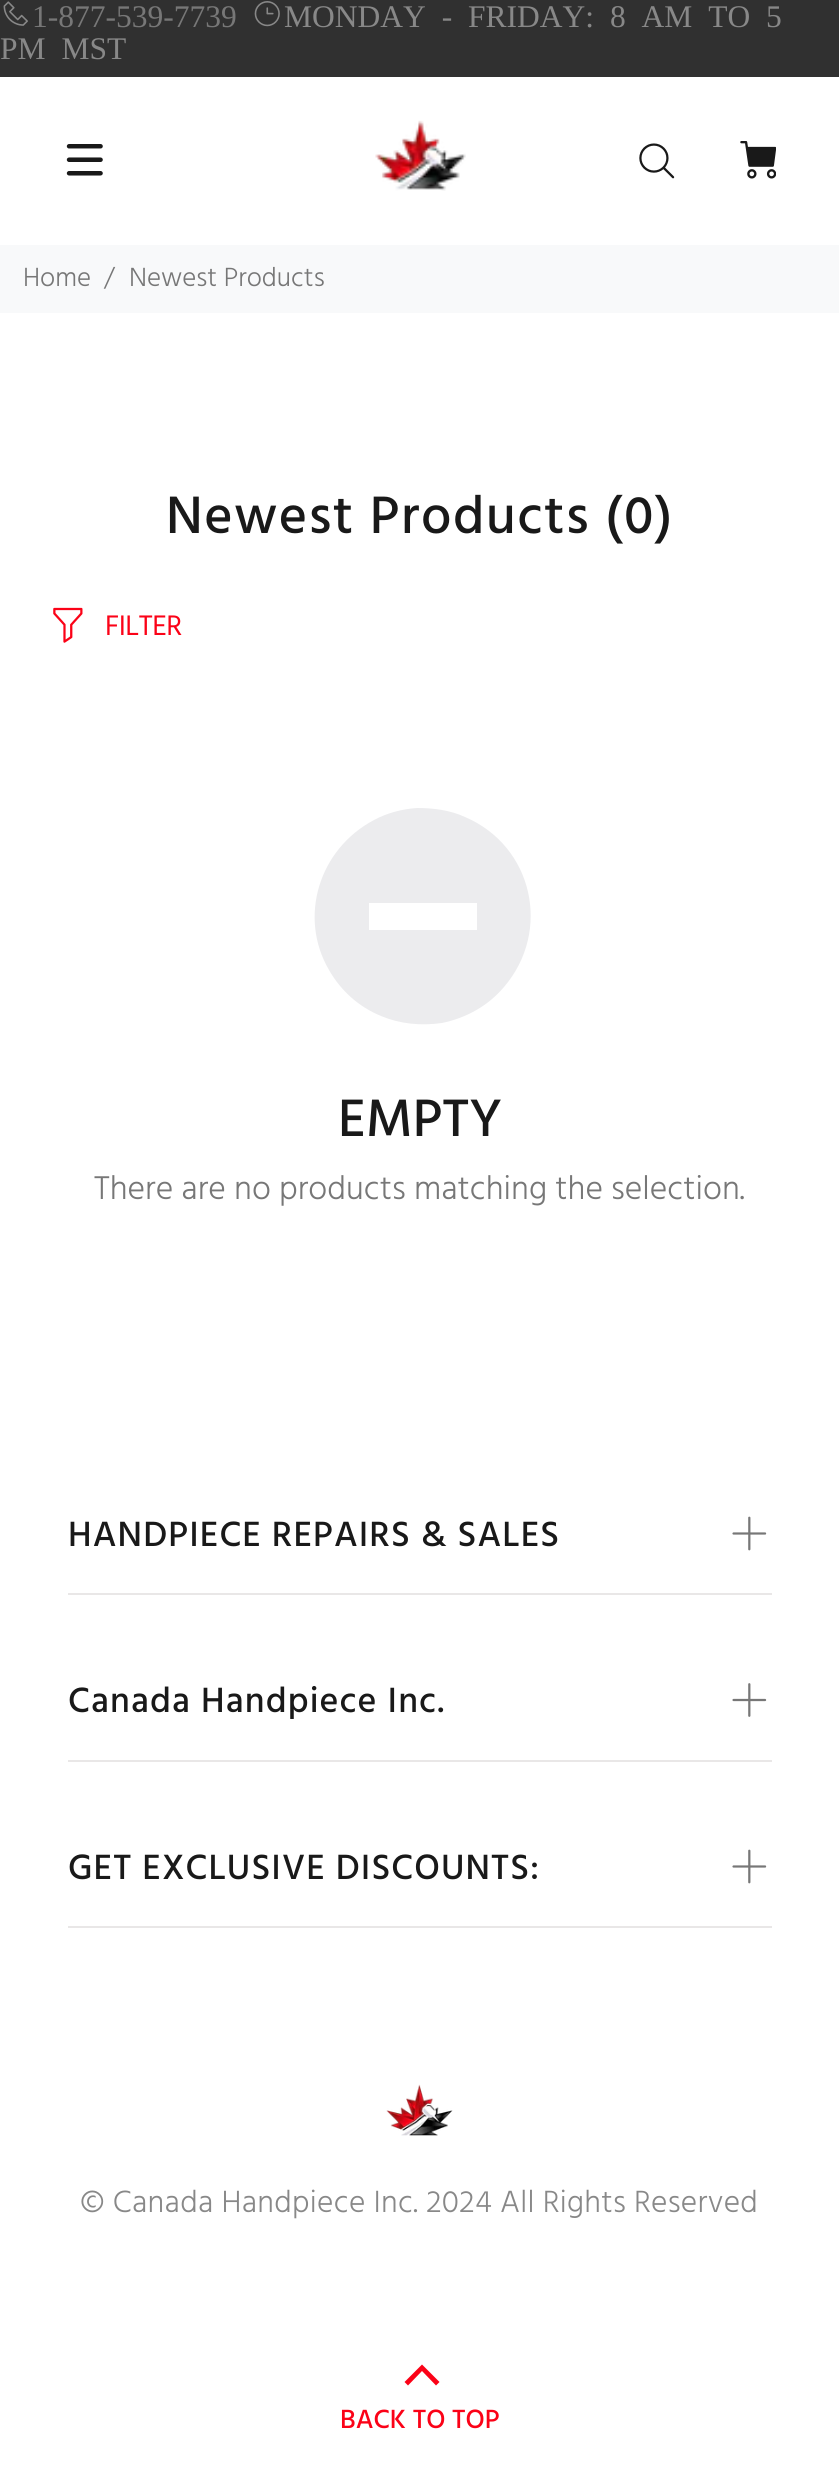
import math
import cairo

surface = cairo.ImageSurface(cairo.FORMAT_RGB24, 839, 2476)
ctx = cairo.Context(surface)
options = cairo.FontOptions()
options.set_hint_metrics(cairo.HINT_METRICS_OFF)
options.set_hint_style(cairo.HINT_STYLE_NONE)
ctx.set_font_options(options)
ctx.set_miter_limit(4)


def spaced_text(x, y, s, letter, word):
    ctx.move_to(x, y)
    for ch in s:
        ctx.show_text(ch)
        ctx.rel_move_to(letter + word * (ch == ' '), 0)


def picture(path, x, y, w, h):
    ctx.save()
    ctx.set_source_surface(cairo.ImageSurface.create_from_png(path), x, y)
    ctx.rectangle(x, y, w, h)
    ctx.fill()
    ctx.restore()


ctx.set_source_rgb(1, 1, 1)
ctx.paint()
ctx.set_source_rgb(0.188, 0.188, 0.188)
ctx.rectangle(0, 0, 839, 77)
ctx.fill()
picture("img1.png", 3, 1, 25, 25)
ctx.select_font_face("Liberation Serif")
ctx.set_font_size(31.5)
ctx.set_source_rgb(0.467, 0.467, 0.467)
ctx.move_to(32, 27)
ctx.show_text("1-877-539-7739")
picture("img2.png", 254, 1, 26, 26)
ctx.set_source_rgb(0.533, 0.533, 0.533)
spaced_text(284, 27, "MONDAY - FRIDAY: 8 AM TO 5", 0, 8)
spaced_text(0, 59, "PM MST", 0, 8)
picture("img3.png", 66, 144, 37, 32)
picture("img4.png", 375, 120, 91, 71)
picture("img5.png", 639, 143, 36, 36)
picture("img6.png", 740, 141, 36, 38)
ctx.set_source_rgb(0.969, 0.973, 0.98)
ctx.rectangle(0, 245, 839, 68)
ctx.fill()
ctx.select_font_face("Hind Light")
ctx.set_font_size(27)
ctx.set_source_rgb(0.467, 0.467, 0.467)
ctx.move_to(23, 286)
ctx.show_text("Home")
ctx.move_to(104, 286)
ctx.show_text("/")
ctx.move_to(129, 286)
ctx.show_text("Newest Products")
ctx.select_font_face("Hind Medium")
ctx.set_font_size(54)
ctx.set_source_rgb(0.098, 0.098, 0.098)
spaced_text(166, 533, "Newest Products (0)", 1.6, 0)
picture("img7.png", 53, 607, 30, 36)
ctx.select_font_face("Hind")
ctx.set_font_size(29)
ctx.set_source_rgb(0.984, 0.008, 0.09)
spaced_text(105, 635, "FILTER", -0.5, 0)
ctx.set_source_rgb(0.922, 0.925, 0.933)
ctx.new_path()
ctx.move_to(465, 817)
ctx.curve_to(533, 846, 552, 931, 504, 987)
ctx.curve_to(488, 1006, 466, 1018, 442, 1023)
ctx.curve_to(421, 1026, 400, 1024, 381, 1016)
ctx.curve_to(359, 1007, 341, 991, 329, 970)
ctx.curve_to(298, 917, 319, 849, 374, 820)
ctx.curve_to(387, 813, 402, 809, 417, 808)
ctx.curve_to(433, 808, 450, 810, 465, 817)
ctx.close_path()
ctx.move_to(477, 903)
ctx.line_to(369, 903)
ctx.line_to(369, 930)
ctx.line_to(477, 930)
ctx.close_path()
ctx.fill()
ctx.select_font_face("Hind Medium")
ctx.set_font_size(54)
ctx.set_source_rgb(0.098, 0.098, 0.098)
ctx.move_to(338, 1136)
ctx.show_text("EMPTY")
ctx.select_font_face("Hind Light")
ctx.set_font_size(33.75)
ctx.set_source_rgb(0.467, 0.467, 0.467)
ctx.move_to(94, 1199)
ctx.show_text("There are no products matching the selection.")
ctx.set_source_rgb(0.914, 0.906, 0.906)
ctx.rectangle(68, 1593, 704, 2)
ctx.fill()
ctx.select_font_face("Hind Medium")
ctx.set_font_size(36)
ctx.set_source_rgb(0.098, 0.098, 0.098)
spaced_text(68, 1546, "HANDPIECE REPAIRS & SALES", 1.1, 0)
picture("img8.png", 732, 1516, 35, 35)
ctx.set_source_rgb(0.914, 0.906, 0.906)
ctx.rectangle(68, 1760, 704, 2)
ctx.fill()
ctx.set_source_rgb(0.098, 0.098, 0.098)
spaced_text(68, 1712, "Canada Handpiece Inc.", 1.1, 0)
picture("img9.png", 732, 1683, 35, 34)
ctx.set_source_rgb(0.914, 0.906, 0.906)
ctx.rectangle(68, 1926, 704, 2)
ctx.fill()
ctx.set_source_rgb(0.098, 0.098, 0.098)
spaced_text(68, 1879, "GET EXCLUSIVE DISCOUNTS:", 1.1, 0)
picture("img8.png", 732, 1849, 35, 35)
picture("img10.png", 386, 2084, 67, 52)
ctx.select_font_face("Hind Light")
ctx.set_font_size(31.5)
ctx.set_source_rgb(0.533, 0.533, 0.533)
spaced_text(80, 2212, "© Canada Handpiece Inc. 2024 All Rights Reserved", 0.3, 0)
ctx.set_source_rgb(0.984, 0.008, 0.09)
ctx.new_path()
ctx.move_to(436, 2385.5)
ctx.line_to(422, 2371)
ctx.line_to(408, 2385.5)
ctx.line_to(404.5, 2382)
ctx.line_to(422, 2364.5)
ctx.line_to(439.5, 2382)
ctx.close_path()
ctx.fill()
ctx.select_font_face("Hind Medium")
ctx.set_font_size(27)
ctx.move_to(340, 2428)
ctx.show_text("BACK TO TOP")
surface.write_to_png("page.png")
